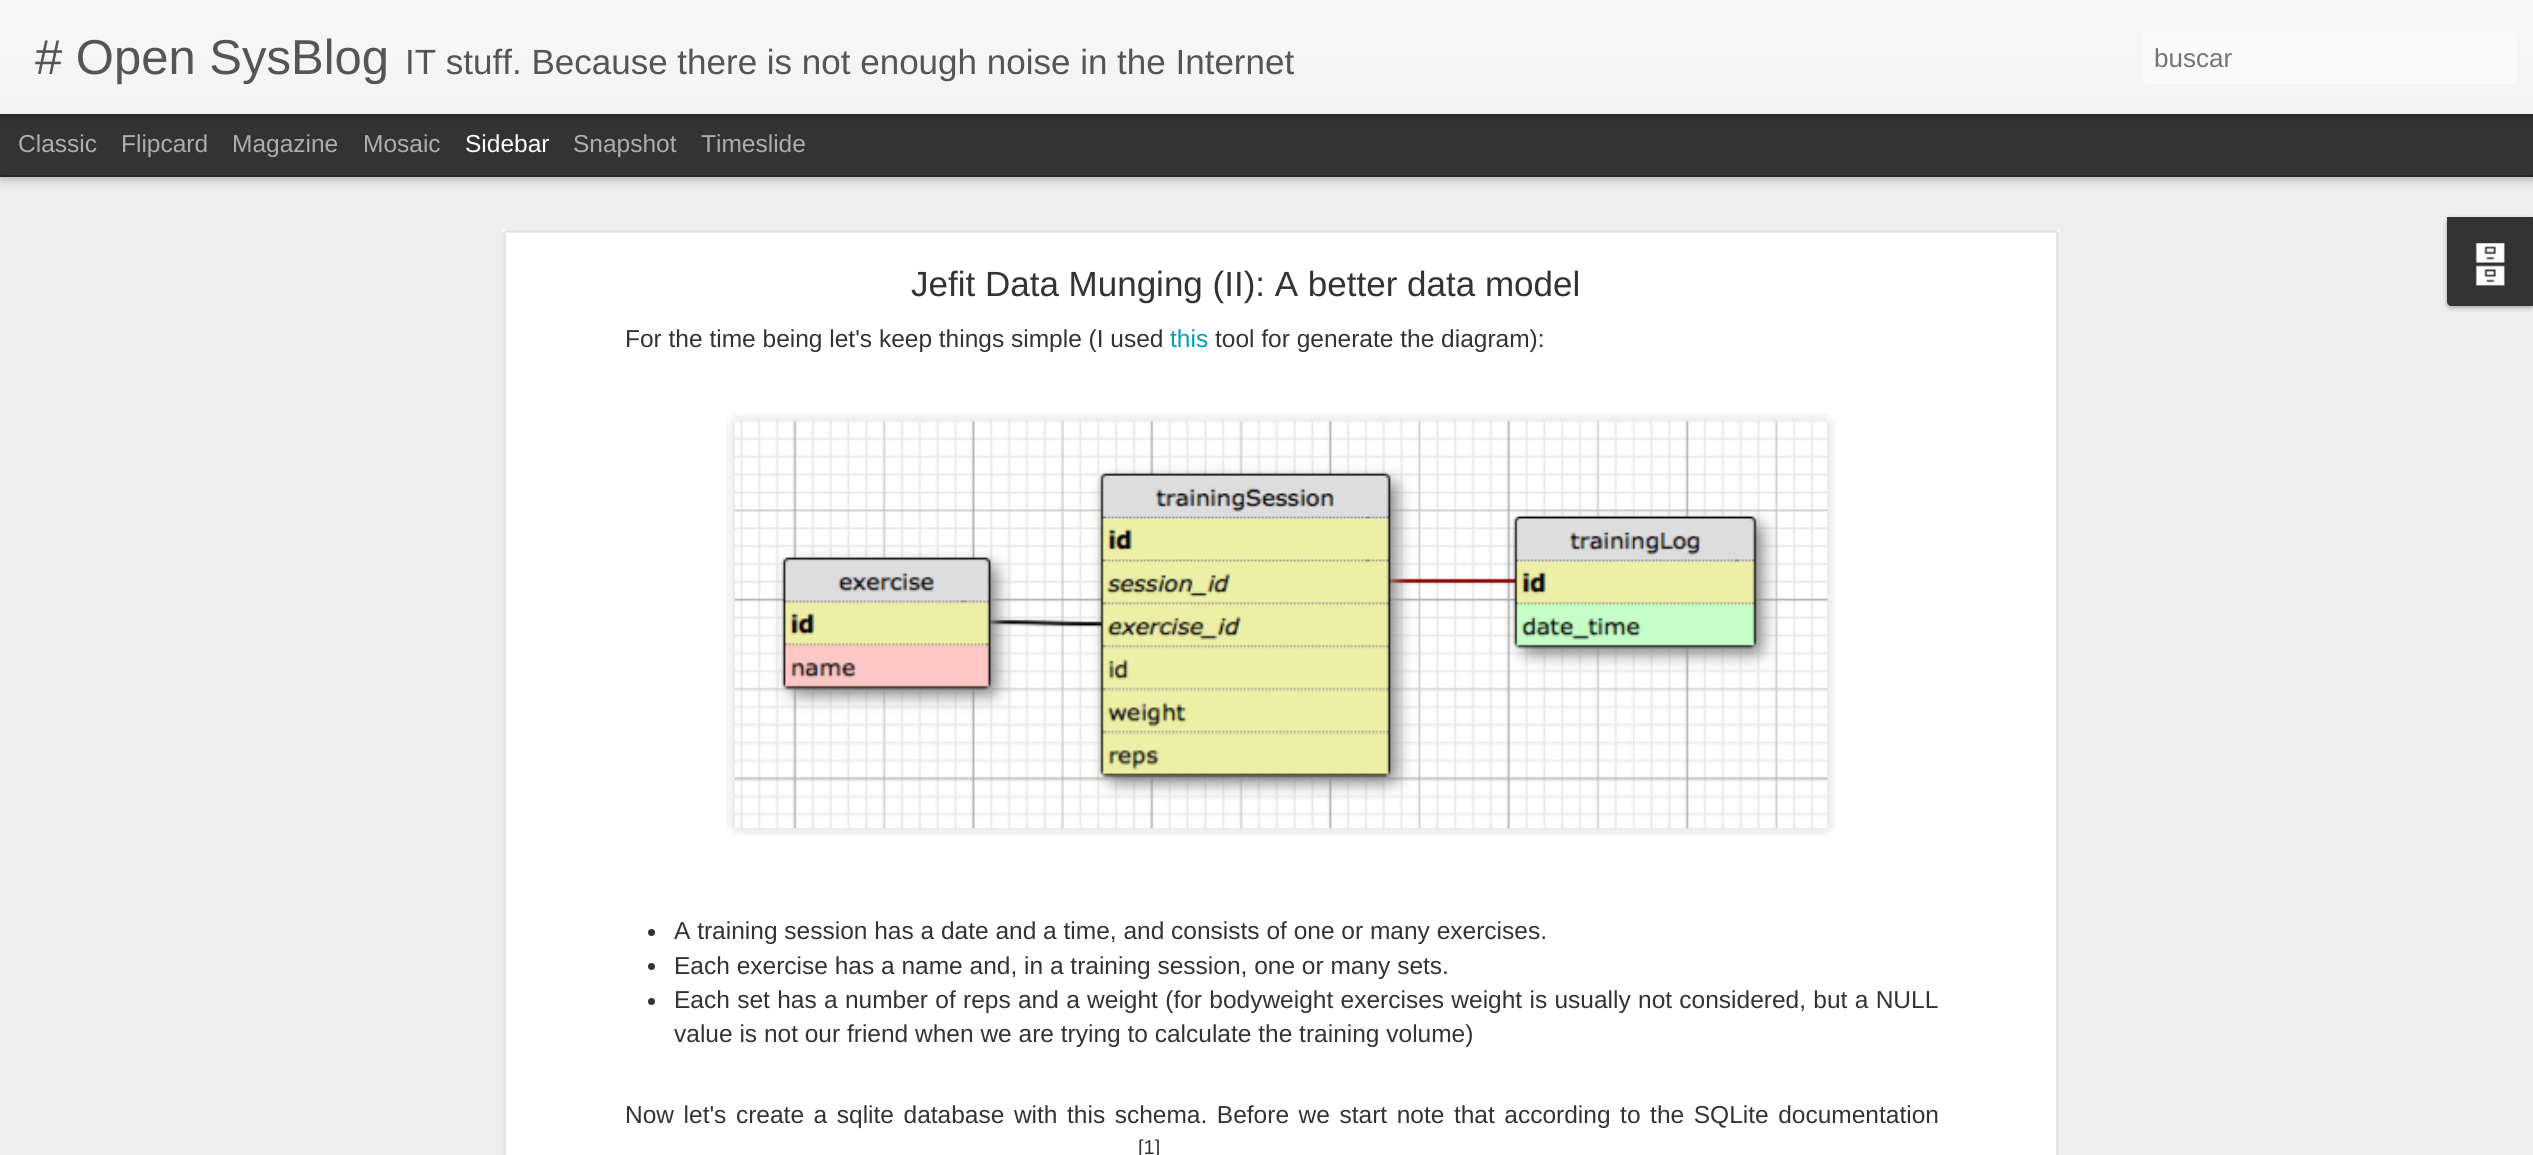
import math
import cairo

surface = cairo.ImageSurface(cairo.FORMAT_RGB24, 2533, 1155)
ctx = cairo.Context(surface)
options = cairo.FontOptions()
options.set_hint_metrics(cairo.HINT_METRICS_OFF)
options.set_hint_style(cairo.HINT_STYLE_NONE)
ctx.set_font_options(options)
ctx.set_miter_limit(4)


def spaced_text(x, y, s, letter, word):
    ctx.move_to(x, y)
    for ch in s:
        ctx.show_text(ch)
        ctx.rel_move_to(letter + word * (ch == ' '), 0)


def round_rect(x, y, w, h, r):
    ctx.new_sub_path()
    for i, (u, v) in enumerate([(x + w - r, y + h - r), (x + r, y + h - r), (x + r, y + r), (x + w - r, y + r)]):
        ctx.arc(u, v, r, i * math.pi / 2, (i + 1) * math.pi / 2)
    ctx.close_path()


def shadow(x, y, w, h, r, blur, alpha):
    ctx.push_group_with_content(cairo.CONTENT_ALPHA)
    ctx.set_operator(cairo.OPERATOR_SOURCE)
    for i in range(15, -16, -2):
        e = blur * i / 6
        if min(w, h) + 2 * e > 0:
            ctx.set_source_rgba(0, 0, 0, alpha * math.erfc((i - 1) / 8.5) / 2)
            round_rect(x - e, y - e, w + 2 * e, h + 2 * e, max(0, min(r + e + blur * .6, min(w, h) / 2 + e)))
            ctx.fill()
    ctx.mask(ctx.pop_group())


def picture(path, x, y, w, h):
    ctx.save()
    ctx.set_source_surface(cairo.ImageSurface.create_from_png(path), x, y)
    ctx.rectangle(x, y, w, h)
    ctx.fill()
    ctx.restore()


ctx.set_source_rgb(0.2, 0.2, 0.2)
ctx.paint()
ctx.set_source_rgb(0.933, 0.933, 0.933)
ctx.rectangle(0, 177, 2533, 978)
ctx.fill()
ctx.set_source_rgb(0, 0, 0)
shadow(0, 114, 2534, 61, 0, 7, 0.5)
ctx.set_source_rgb(0.2, 0.2, 0.2)
ctx.rectangle(0, 114, 2533, 61)
ctx.fill()
ctx.set_source_rgb(0, 0, 0)
shadow(0, 0, 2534, 114, 0, 4.5, 0.3)
gradient = cairo.LinearGradient(0, 0, 0, 114)
gradient.add_color_stop_rgba(0, 0.969, 0.969, 0.969, 1)
gradient.add_color_stop_rgba(1, 0.957, 0.957, 0.957, 1)
ctx.set_source(gradient)
ctx.rectangle(0, 0, 2533, 114)
ctx.fill()
ctx.select_font_face("Liberation Sans")
ctx.set_font_size(49)
ctx.set_source_rgb(0.333, 0.333, 0.333)
ctx.move_to(35, 74)
ctx.show_text("# Open SysBlog")
ctx.set_font_size(35)
ctx.move_to(405, 74)
ctx.show_text("IT stuff. Because there is not enough noise in the Internet")
ctx.set_source_rgb(0.98, 0.98, 0.98)
round_rect(2142, 32, 375, 52, 5)
ctx.fill()
ctx.set_font_size(26)
ctx.set_source_rgb(0.459, 0.459, 0.459)
ctx.move_to(2154, 67)
ctx.show_text("buscar")
ctx.set_font_size(24.5)
ctx.set_source_rgb(0.678, 0.678, 0.678)
ctx.move_to(18, 152)
ctx.show_text("Classic")
ctx.move_to(121, 152)
ctx.show_text("Flipcard")
ctx.move_to(232, 152)
ctx.show_text("Magazine")
ctx.move_to(363, 152)
ctx.show_text("Mosaic")
ctx.set_source_rgb(1, 1, 1)
ctx.move_to(465, 152)
ctx.show_text("Sidebar")
ctx.set_source_rgb(0.678, 0.678, 0.678)
ctx.move_to(573, 152)
ctx.show_text("Snapshot")
ctx.move_to(701, 152)
ctx.show_text("Timeslide")
ctx.set_source_rgb(1, 1, 1)
ctx.rectangle(502, 229, 1558, 926)
ctx.fill()
picture("img1.png", 502, 229, 1558, 926)
ctx.set_font_size(35)
ctx.set_source_rgb(0.2, 0.2, 0.2)
ctx.move_to(911, 296)
ctx.show_text("Jefit Data Munging (II): A better data model")
ctx.set_font_size(24.5)
ctx.move_to(625, 347)
ctx.show_text("For the time being let's keep things simple (I used")
ctx.set_source_rgb(0, 0.62, 0.722)
ctx.move_to(1170, 347)
ctx.show_text("this")
ctx.set_source_rgb(0.2, 0.2, 0.2)
ctx.move_to(1215, 347)
ctx.show_text("tool for generate the diagram):")
picture("img2.png", 726, 413, 1110, 423)
picture("img3.png", 734, 420, 1094, 410)
ctx.arc(651.5, 932.5, 3.5, 0, 2 * math.pi)
ctx.fill()
ctx.move_to(674, 939)
ctx.show_text("A training session has a date and a time, and consists of one or many exercises.")
ctx.new_path()
ctx.arc(651.5, 966.5, 3.5, 0, 2 * math.pi)
ctx.fill()
ctx.move_to(674, 974)
ctx.show_text("Each exercise has a name and, in a training session, one or many sets.")
ctx.new_path()
ctx.arc(651.5, 1001.5, 3.5, 0, 2 * math.pi)
ctx.fill()
spaced_text(674, 1008, "Each set has a number of reps and a weight (for bodyweight exercises weight is usually not considered, but a NULL", 0, 0.5)
ctx.move_to(674, 1042)
ctx.show_text("value is not our friend when we are trying to calculate the training volume)")
spaced_text(625, 1123, "Now let's create a sqlite database with this schema. Before we start note that according to the SQLite documentation", 0, 2.75)
ctx.set_font_size(20)
ctx.move_to(1138, 1154)
ctx.show_text("[1]")
ctx.set_source_rgb(0, 0, 0)
shadow(2447, 219, 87, 89, 4, 2.5, 0.3)
ctx.set_source_rgb(0.2, 0.2, 0.2)
ctx.new_path()
ctx.move_to(2447, 217)
ctx.line_to(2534, 217)
ctx.line_to(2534, 306)
ctx.line_to(2451, 306)
ctx.curve_to(2449, 306, 2447, 304, 2447, 302)
ctx.close_path()
ctx.fill()
picture("img4.png", 2475, 243, 30, 43)
surface.write_to_png("page.png")
